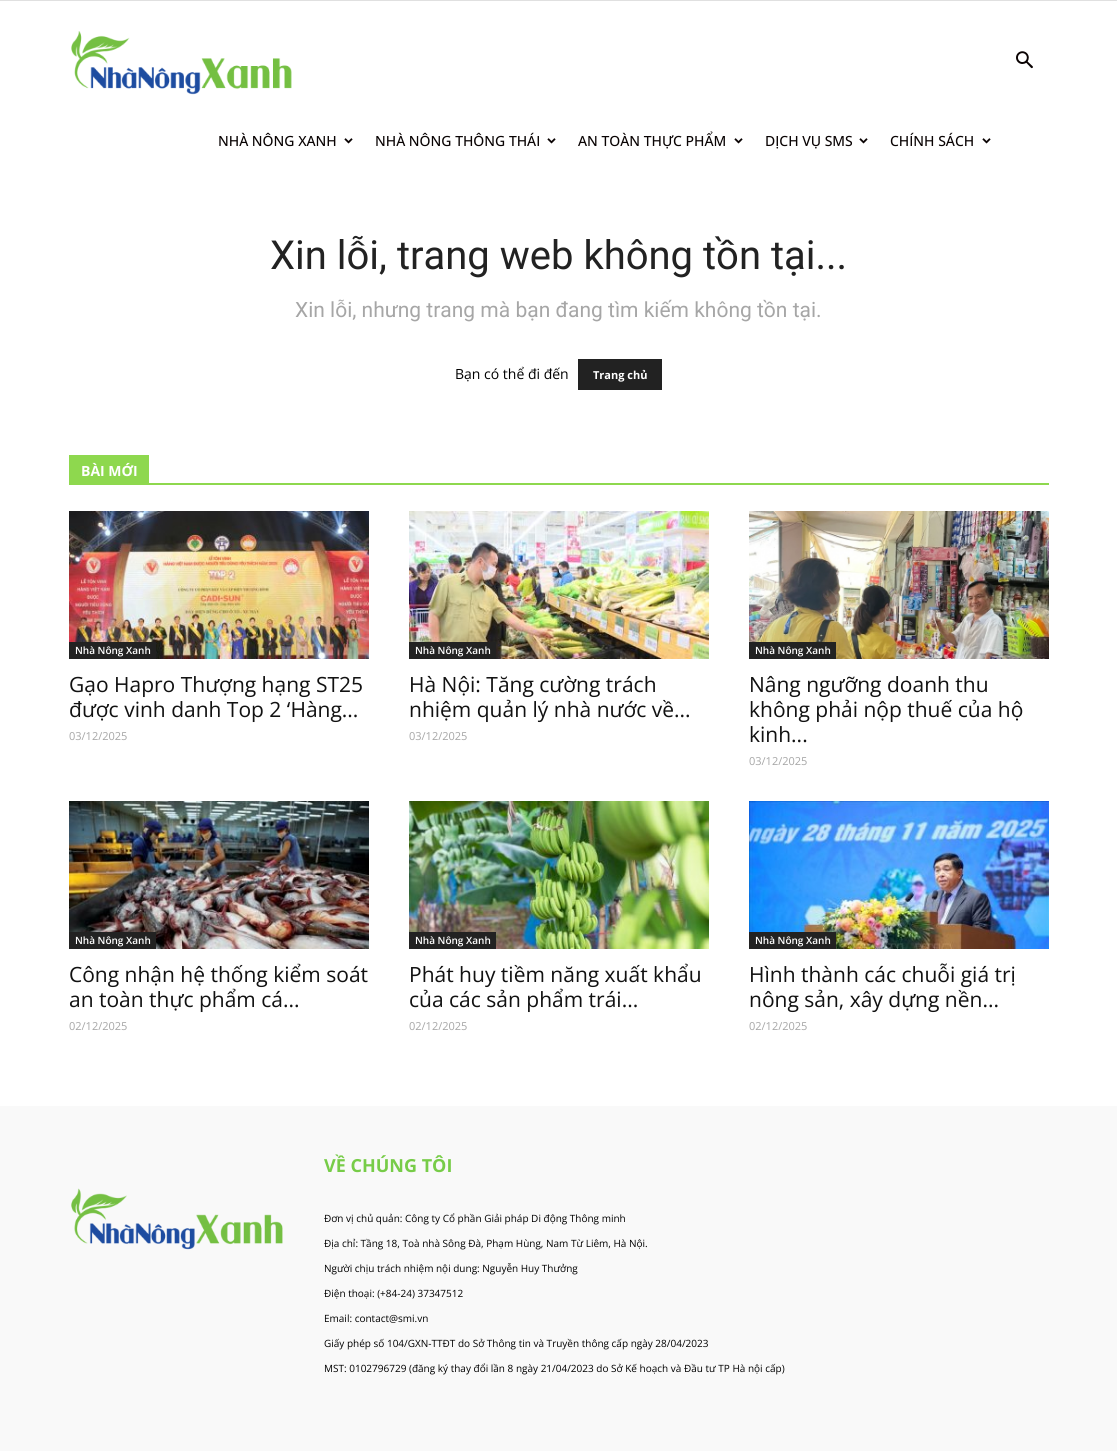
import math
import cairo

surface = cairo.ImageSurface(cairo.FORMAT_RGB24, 1117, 1451)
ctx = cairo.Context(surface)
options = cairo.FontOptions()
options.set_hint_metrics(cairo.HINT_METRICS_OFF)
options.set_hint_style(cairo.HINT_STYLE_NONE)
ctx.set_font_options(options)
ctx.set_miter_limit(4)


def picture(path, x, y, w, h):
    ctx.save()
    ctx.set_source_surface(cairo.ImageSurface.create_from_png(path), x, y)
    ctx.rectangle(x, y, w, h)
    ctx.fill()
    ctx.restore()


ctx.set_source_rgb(1, 1, 1)
ctx.paint()
ctx.set_source_rgb(0.878, 0.878, 0.878)
ctx.rectangle(0, 0, 1117, 1)
ctx.fill()
picture("img1.png", 1016, 51, 17, 18)
picture("img2.png", 71, 31, 221, 64)
ctx.select_font_face("Open Sans Medium")
ctx.set_font_size(14)
ctx.set_source_rgb(0.039, 0.012, 0.012)
ctx.move_to(218, 146)
ctx.show_text("NHÀ NÔNG XANH")
picture("img3.png", 344, 138, 9, 6)
ctx.move_to(375, 146)
ctx.show_text("NHÀ NÔNG THÔNG THÁI")
picture("img3.png", 547, 138, 9, 6)
ctx.move_to(578, 146)
ctx.show_text("AN TOÀN THỰC PHẨM")
picture("img3.png", 734, 138, 9, 6)
ctx.move_to(765, 146)
ctx.show_text("DỊCH VỤ SMS")
picture("img3.png", 859, 138, 9, 6)
ctx.move_to(890, 146)
ctx.show_text("CHÍNH SÁCH")
picture("img3.png", 982, 138, 9, 6)
ctx.select_font_face("Roboto")
ctx.set_font_size(40)
ctx.set_source_rgb(0.133, 0.133, 0.133)
ctx.move_to(270, 269)
ctx.show_text("Xin lỗi, trang web không tồn tại...")
ctx.set_font_size(21)
ctx.set_source_rgb(0.651, 0.651, 0.651)
ctx.move_to(295, 317)
ctx.show_text("Xin lỗi, nhưng trang mà bạn đang tìm kiếm không tồn tại.")
ctx.select_font_face("Open Sans")
ctx.set_font_size(14)
ctx.set_source_rgb(0, 0, 0)
ctx.move_to(455, 379)
ctx.show_text("Bạn có thể đi đến")
ctx.set_source_rgb(0.133, 0.133, 0.133)
ctx.rectangle(578, 359, 84, 31)
ctx.fill()
ctx.select_font_face("Open Sans", cairo.FONT_SLANT_NORMAL, cairo.FONT_WEIGHT_BOLD)
ctx.set_font_size(11)
ctx.set_source_rgb(1, 1, 1)
ctx.move_to(593, 379)
ctx.show_text("Trang chủ")
ctx.set_source_rgb(0.557, 0.847, 0.306)
ctx.rectangle(69, 483, 980, 2)
ctx.fill()
ctx.rectangle(69, 455, 80, 28)
ctx.fill()
ctx.set_font_size(14)
ctx.set_source_rgb(1, 1, 1)
ctx.move_to(81, 476)
ctx.show_text("BÀI MỚI")
picture("img4.png", 69, 511, 300, 148)
ctx.set_source_rgb(0.133, 0.133, 0.133)
ctx.rectangle(69, 642, 87, 17)
ctx.fill()
ctx.select_font_face("Open Sans SemiBold")
ctx.set_font_size(10)
ctx.set_source_rgb(1, 1, 1)
ctx.move_to(75, 654)
ctx.show_text("Nhà Nông Xanh")
ctx.select_font_face("Open Sans")
ctx.set_font_size(21)
ctx.set_source_rgb(0.067, 0.067, 0.067)
ctx.move_to(69, 692)
ctx.show_text("Gạo Hapro Thượng hạng ST25")
ctx.move_to(69, 717)
ctx.show_text("được vinh danh Top 2 ‘Hàng...")
ctx.set_font_size(11)
ctx.set_source_rgb(0.651, 0.651, 0.651)
ctx.move_to(69, 740)
ctx.show_text("03/12/2025")
picture("img5.png", 409, 511, 300, 148)
ctx.set_source_rgb(0.133, 0.133, 0.133)
ctx.rectangle(409, 642, 87, 17)
ctx.fill()
ctx.select_font_face("Open Sans SemiBold")
ctx.set_font_size(10)
ctx.set_source_rgb(1, 1, 1)
ctx.move_to(415, 654)
ctx.show_text("Nhà Nông Xanh")
ctx.select_font_face("Open Sans")
ctx.set_font_size(21)
ctx.set_source_rgb(0.067, 0.067, 0.067)
ctx.move_to(409, 692)
ctx.show_text("Hà Nội: Tăng cường trách")
ctx.move_to(409, 717)
ctx.show_text("nhiệm quản lý nhà nước về...")
ctx.set_font_size(11)
ctx.set_source_rgb(0.651, 0.651, 0.651)
ctx.move_to(409, 740)
ctx.show_text("03/12/2025")
picture("img6.png", 749, 511, 300, 148)
ctx.set_source_rgb(0.133, 0.133, 0.133)
ctx.rectangle(749, 642, 87, 17)
ctx.fill()
ctx.select_font_face("Open Sans SemiBold")
ctx.set_font_size(10)
ctx.set_source_rgb(1, 1, 1)
ctx.move_to(755, 654)
ctx.show_text("Nhà Nông Xanh")
ctx.select_font_face("Open Sans")
ctx.set_font_size(21)
ctx.set_source_rgb(0.067, 0.067, 0.067)
ctx.move_to(749, 692)
ctx.show_text("Nâng ngưỡng doanh thu")
ctx.move_to(749, 717)
ctx.show_text("không phải nộp thuế của hộ")
ctx.move_to(749, 742)
ctx.show_text("kinh...")
ctx.set_font_size(11)
ctx.set_source_rgb(0.651, 0.651, 0.651)
ctx.move_to(749, 765)
ctx.show_text("03/12/2025")
picture("img7.png", 69, 801, 300, 148)
ctx.set_source_rgb(0.133, 0.133, 0.133)
ctx.rectangle(69, 932, 87, 17)
ctx.fill()
ctx.select_font_face("Open Sans SemiBold")
ctx.set_font_size(10)
ctx.set_source_rgb(1, 1, 1)
ctx.move_to(75, 944)
ctx.show_text("Nhà Nông Xanh")
ctx.select_font_face("Open Sans")
ctx.set_font_size(21)
ctx.set_source_rgb(0.067, 0.067, 0.067)
ctx.move_to(69, 982)
ctx.show_text("Công nhận hệ thống kiểm soát")
ctx.move_to(69, 1007)
ctx.show_text("an toàn thực phẩm cá...")
ctx.set_font_size(11)
ctx.set_source_rgb(0.651, 0.651, 0.651)
ctx.move_to(69, 1030)
ctx.show_text("02/12/2025")
picture("img8.png", 409, 801, 300, 148)
ctx.set_source_rgb(0.133, 0.133, 0.133)
ctx.rectangle(409, 932, 87, 17)
ctx.fill()
ctx.select_font_face("Open Sans SemiBold")
ctx.set_font_size(10)
ctx.set_source_rgb(1, 1, 1)
ctx.move_to(415, 944)
ctx.show_text("Nhà Nông Xanh")
ctx.select_font_face("Open Sans")
ctx.set_font_size(21)
ctx.set_source_rgb(0.067, 0.067, 0.067)
ctx.move_to(409, 982)
ctx.show_text("Phát huy tiềm năng xuất khẩu")
ctx.move_to(409, 1007)
ctx.show_text("của các sản phẩm trái...")
ctx.set_font_size(11)
ctx.set_source_rgb(0.651, 0.651, 0.651)
ctx.move_to(409, 1030)
ctx.show_text("02/12/2025")
picture("img9.png", 749, 801, 300, 148)
ctx.set_source_rgb(0.133, 0.133, 0.133)
ctx.rectangle(749, 932, 87, 17)
ctx.fill()
ctx.select_font_face("Open Sans SemiBold")
ctx.set_font_size(10)
ctx.set_source_rgb(1, 1, 1)
ctx.move_to(755, 944)
ctx.show_text("Nhà Nông Xanh")
ctx.select_font_face("Open Sans")
ctx.set_font_size(21)
ctx.set_source_rgb(0.067, 0.067, 0.067)
ctx.move_to(749, 982)
ctx.show_text("Hình thành các chuỗi giá trị")
ctx.move_to(749, 1007)
ctx.show_text("nông sản, xây dựng nền...")
ctx.set_font_size(11)
ctx.set_source_rgb(0.651, 0.651, 0.651)
ctx.move_to(749, 1030)
ctx.show_text("02/12/2025")
ctx.set_source_rgb(0.976, 0.976, 0.976)
ctx.rectangle(0, 1106, 1117, 345)
ctx.fill()
picture("img10.png", 71, 1188, 212, 62)
ctx.select_font_face("Open Sans", cairo.FONT_SLANT_NORMAL, cairo.FONT_WEIGHT_BOLD)
ctx.set_font_size(18)
ctx.set_source_rgb(0.467, 0.8, 0.282)
ctx.move_to(324, 1172)
ctx.show_text("VỀ CHÚNG TÔI")
ctx.select_font_face("Open Sans")
ctx.set_font_size(10)
ctx.set_source_rgb(0, 0, 0)
ctx.move_to(324, 1222)
ctx.show_text("Đơn vị chủ quản: Công ty Cổ phần Giải pháp Di động Thông minh")
ctx.move_to(324, 1247)
ctx.show_text("Địa chỉ: Tầng 18, Toà nhà Sông Đà, Phạm Hùng, Nam Từ Liêm, Hà Nội.")
ctx.move_to(324, 1272)
ctx.show_text("Người chịu trách nhiệm nội dung: Nguyễn Huy Thưởng")
ctx.move_to(324, 1297)
ctx.show_text("Điện thoại: (+84-24) 37347512")
ctx.move_to(324, 1322)
ctx.show_text("Email: contact@smi.vn")
ctx.move_to(324, 1347)
ctx.show_text("Giấy phép số 104/GXN-TTĐT do Sở Thông tin và Truyền thông cấp ngày 28/04/2023")
ctx.move_to(324, 1372)
ctx.show_text("MST: 0102796729 (đăng ký thay đổi lần 8 ngày 21/04/2023 do Sở Kế hoạch và Đầu tư TP Hà nội cấp)")
surface.write_to_png("page.png")
